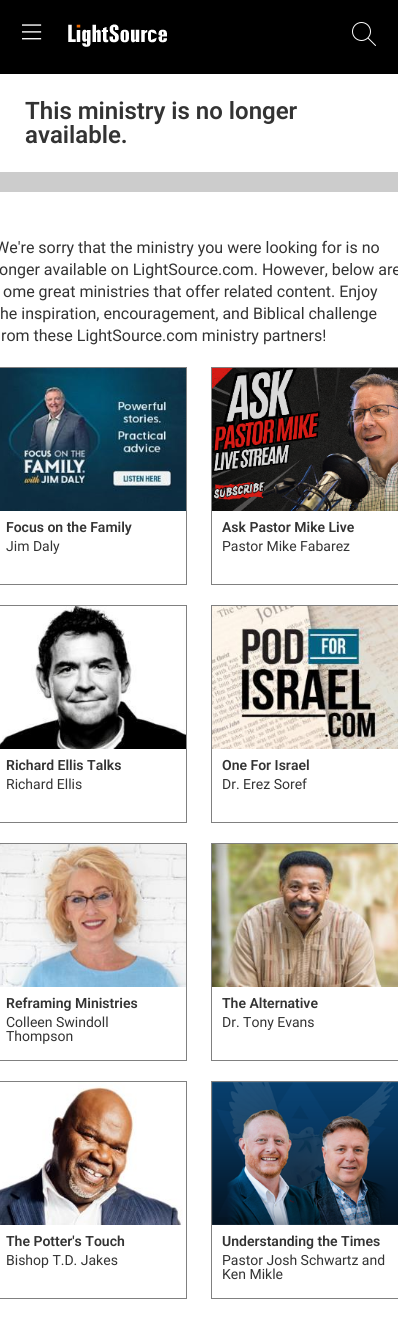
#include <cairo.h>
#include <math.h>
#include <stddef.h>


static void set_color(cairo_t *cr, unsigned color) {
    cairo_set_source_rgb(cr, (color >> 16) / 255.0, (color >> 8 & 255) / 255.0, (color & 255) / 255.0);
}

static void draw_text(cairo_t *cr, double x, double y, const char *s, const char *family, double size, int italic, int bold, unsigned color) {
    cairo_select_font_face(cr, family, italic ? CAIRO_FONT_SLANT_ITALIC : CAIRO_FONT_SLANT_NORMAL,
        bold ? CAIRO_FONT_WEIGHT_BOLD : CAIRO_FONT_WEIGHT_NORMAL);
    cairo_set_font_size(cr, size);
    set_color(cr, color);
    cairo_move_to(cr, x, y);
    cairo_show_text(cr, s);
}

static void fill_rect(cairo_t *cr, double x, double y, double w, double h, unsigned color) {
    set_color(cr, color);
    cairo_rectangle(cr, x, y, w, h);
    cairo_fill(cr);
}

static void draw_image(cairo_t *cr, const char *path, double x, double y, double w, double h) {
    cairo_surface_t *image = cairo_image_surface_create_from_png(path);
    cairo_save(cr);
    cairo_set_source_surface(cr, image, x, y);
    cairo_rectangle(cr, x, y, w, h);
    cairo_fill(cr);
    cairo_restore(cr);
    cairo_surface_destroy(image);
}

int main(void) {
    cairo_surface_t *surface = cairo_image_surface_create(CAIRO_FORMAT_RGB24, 398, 1324);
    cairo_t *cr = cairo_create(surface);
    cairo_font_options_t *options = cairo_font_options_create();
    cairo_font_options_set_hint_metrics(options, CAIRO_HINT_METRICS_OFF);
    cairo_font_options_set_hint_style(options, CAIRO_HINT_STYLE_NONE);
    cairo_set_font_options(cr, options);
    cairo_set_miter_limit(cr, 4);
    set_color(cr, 0xCCCCCC);
    cairo_paint(cr);
    fill_rect(cr, 0, 0, 398, 74, 0x000000);
    draw_image(cr, "assets/img1.png", 22, 24, 20, 16);
    draw_image(cr, "assets/img2.png", 68, 24, 99, 23);
    draw_image(cr, "assets/img3.png", 352, 22, 24, 24);
    fill_rect(cr, 0, 74, 398, 98, 0xFFFFFF);
    draw_text(cr, 25, 119, "This ministry is no longer", "Roboto SemiBold", 24, 0, 0, 0x333333);
    draw_text(cr, 25, 143, "available.", "Roboto SemiBold", 24, 0, 0, 0x333333);
    fill_rect(cr, 0, 192, 398, 1132, 0xFFFFFF);
    draw_text(cr, -5, 253, "We're sorry that the ministry you were looking for is no", "Roboto", 16, 0, 0, 0x333333);
    draw_text(cr, -1, 275, "onger available on LightSource.com. However, below are", "Roboto", 16, 0, 0, 0x333333);
    draw_text(cr, 3, 297, "ome great ministries that offer related content. Enjoy", "Roboto", 16, 0, 0, 0x333333);
    draw_text(cr, 0, 319, "he inspiration, encouragement, and Biblical challenge", "Roboto", 16, 0, 0, 0x333333);
    draw_text(cr, 1, 341, "rom these LightSource.com ministry partners!", "Roboto", 16, 0, 0, 0x333333);
    cairo_rectangle(cr, -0.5, 367.5, 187, 217);
    set_color(cr, 0x808080);
    cairo_set_line_width(cr, 1);
    cairo_stroke(cr);
    draw_image(cr, "assets/img4.png", 0, 368, 186, 143);
    draw_text(cr, 6, 532, "Focus on the Family", "Roboto SemiBold", 14, 0, 0, 0x333333);
    draw_text(cr, 6, 551, "Jim Daly", "Roboto", 14, 0, 0, 0x333333);
    cairo_rectangle(cr, 211.5, 367.5, 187, 217);
    set_color(cr, 0x808080);
    cairo_stroke(cr);
    draw_image(cr, "assets/img5.png", 212, 368, 186, 143);
    draw_text(cr, 222, 532, "Ask Pastor Mike Live", "Roboto SemiBold", 14, 0, 0, 0x333333);
    draw_text(cr, 222, 551, "Pastor Mike Fabarez", "Roboto", 14, 0, 0, 0x333333);
    cairo_rectangle(cr, -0.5, 605.5, 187, 217);
    set_color(cr, 0x808080);
    cairo_stroke(cr);
    draw_image(cr, "assets/img6.png", 0, 606, 186, 143);
    draw_text(cr, 6, 770, "Richard Ellis Talks", "Roboto SemiBold", 14, 0, 0, 0x333333);
    draw_text(cr, 6, 789, "Richard Ellis", "Roboto", 14, 0, 0, 0x333333);
    cairo_rectangle(cr, 211.5, 605.5, 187, 217);
    set_color(cr, 0x808080);
    cairo_stroke(cr);
    draw_image(cr, "assets/img7.png", 212, 606, 186, 143);
    draw_text(cr, 222, 770, "One For Israel", "Roboto SemiBold", 14, 0, 0, 0x333333);
    draw_text(cr, 222, 789, "Dr. Erez Soref", "Roboto", 14, 0, 0, 0x333333);
    cairo_rectangle(cr, -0.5, 843.5, 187, 217);
    set_color(cr, 0x808080);
    cairo_stroke(cr);
    draw_image(cr, "assets/img8.png", 0, 844, 186, 143);
    draw_text(cr, 6, 1008, "Reframing Ministries", "Roboto SemiBold", 14, 0, 0, 0x333333);
    draw_text(cr, 6, 1027, "Colleen Swindoll", "Roboto", 14, 0, 0, 0x333333);
    draw_text(cr, 6, 1041, "Thompson", "Roboto", 14, 0, 0, 0x333333);
    cairo_rectangle(cr, 211.5, 843.5, 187, 217);
    set_color(cr, 0x808080);
    cairo_stroke(cr);
    draw_image(cr, "assets/img9.png", 212, 844, 186, 143);
    draw_text(cr, 222, 1008, "The Alternative", "Roboto SemiBold", 14, 0, 0, 0x333333);
    draw_text(cr, 222, 1027, "Dr. Tony Evans", "Roboto", 14, 0, 0, 0x333333);
    cairo_rectangle(cr, -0.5, 1081.5, 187, 217);
    set_color(cr, 0x808080);
    cairo_stroke(cr);
    draw_image(cr, "assets/img10.png", 0, 1082, 183, 143);
    draw_text(cr, 6, 1246, "The Potter's Touch", "Roboto SemiBold", 14, 0, 0, 0x333333);
    draw_text(cr, 6, 1265, "Bishop T.D. Jakes", "Roboto", 14, 0, 0, 0x333333);
    cairo_rectangle(cr, 211.5, 1081.5, 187, 217);
    set_color(cr, 0x808080);
    cairo_stroke(cr);
    draw_image(cr, "assets/img11.png", 212, 1082, 186, 143);
    draw_text(cr, 222, 1246, "Understanding the Times", "Roboto SemiBold", 14, 0, 0, 0x333333);
    draw_text(cr, 222, 1265, "Pastor Josh Schwartz and", "Roboto", 14, 0, 0, 0x333333);
    draw_text(cr, 222, 1279, "Ken Mikle", "Roboto", 14, 0, 0, 0x333333);
    cairo_surface_write_to_png(surface, "output.png");
    cairo_font_options_destroy(options);
    cairo_destroy(cr);
    cairo_surface_destroy(surface);
    return 0;
}
